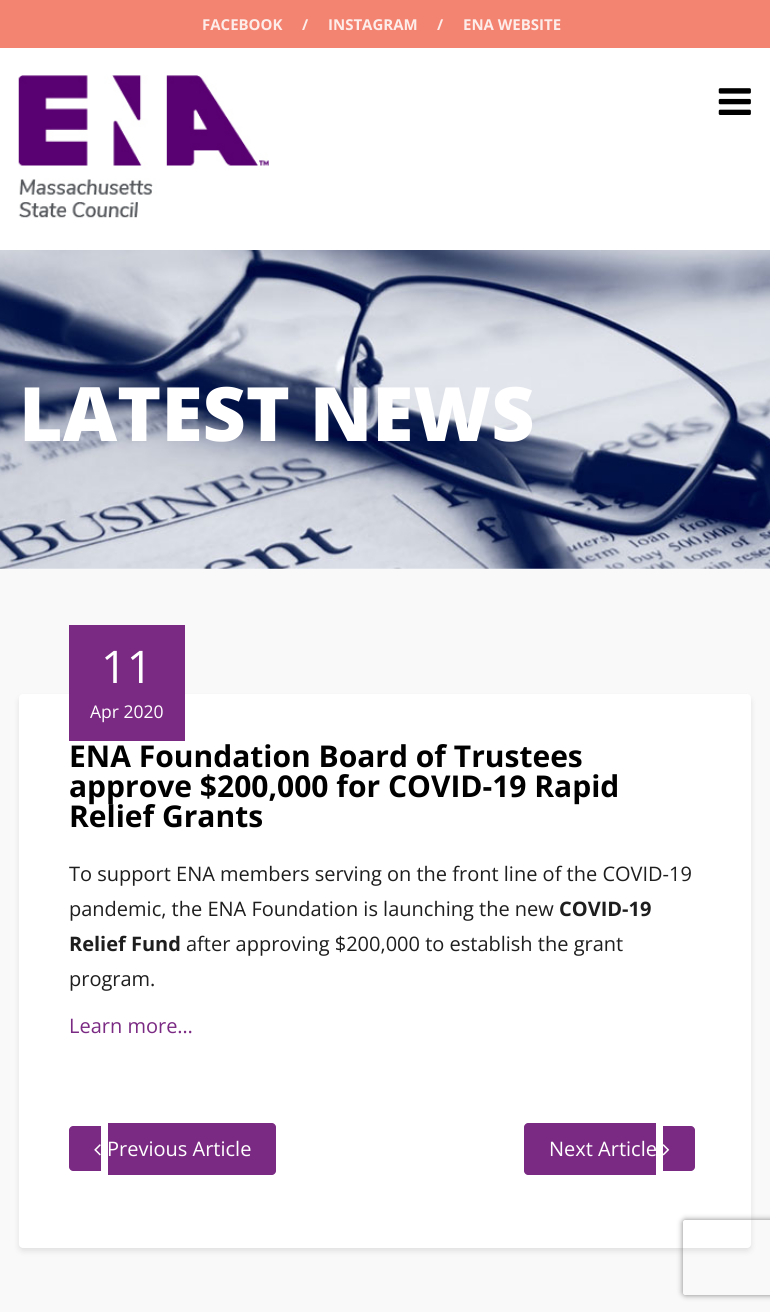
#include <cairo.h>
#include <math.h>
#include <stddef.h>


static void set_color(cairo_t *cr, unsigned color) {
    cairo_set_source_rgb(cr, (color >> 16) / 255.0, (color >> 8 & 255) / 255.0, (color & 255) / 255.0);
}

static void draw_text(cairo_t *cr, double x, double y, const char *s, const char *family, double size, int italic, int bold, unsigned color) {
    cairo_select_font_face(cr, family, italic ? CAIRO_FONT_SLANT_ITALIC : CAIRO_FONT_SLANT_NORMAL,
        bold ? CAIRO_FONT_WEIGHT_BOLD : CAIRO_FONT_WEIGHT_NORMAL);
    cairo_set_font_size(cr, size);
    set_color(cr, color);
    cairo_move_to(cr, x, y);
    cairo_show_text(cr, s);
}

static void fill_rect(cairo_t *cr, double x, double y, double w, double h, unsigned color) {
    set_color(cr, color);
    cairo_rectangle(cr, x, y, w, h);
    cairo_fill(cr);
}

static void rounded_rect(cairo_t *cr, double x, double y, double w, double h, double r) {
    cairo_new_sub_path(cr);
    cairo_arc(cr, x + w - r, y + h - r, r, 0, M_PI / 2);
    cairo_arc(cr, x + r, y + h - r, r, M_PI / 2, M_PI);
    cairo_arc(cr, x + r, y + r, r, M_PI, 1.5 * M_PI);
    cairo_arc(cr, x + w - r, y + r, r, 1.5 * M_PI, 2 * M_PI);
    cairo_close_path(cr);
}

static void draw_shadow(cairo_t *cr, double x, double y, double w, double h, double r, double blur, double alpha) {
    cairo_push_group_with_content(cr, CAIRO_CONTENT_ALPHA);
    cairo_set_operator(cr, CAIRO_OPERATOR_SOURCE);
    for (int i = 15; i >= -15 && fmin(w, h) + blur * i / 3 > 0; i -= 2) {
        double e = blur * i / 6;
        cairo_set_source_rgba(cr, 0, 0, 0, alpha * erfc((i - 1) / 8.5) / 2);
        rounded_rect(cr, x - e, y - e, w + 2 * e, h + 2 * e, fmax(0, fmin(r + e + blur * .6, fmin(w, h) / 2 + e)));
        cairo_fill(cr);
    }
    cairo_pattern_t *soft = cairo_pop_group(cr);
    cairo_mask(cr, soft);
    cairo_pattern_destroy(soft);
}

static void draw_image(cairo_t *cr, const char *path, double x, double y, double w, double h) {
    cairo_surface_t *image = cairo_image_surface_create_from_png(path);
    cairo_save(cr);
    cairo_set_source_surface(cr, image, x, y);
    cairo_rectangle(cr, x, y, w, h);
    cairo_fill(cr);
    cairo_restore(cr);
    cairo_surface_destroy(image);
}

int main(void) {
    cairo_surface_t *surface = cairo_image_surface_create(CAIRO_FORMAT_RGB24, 770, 1312);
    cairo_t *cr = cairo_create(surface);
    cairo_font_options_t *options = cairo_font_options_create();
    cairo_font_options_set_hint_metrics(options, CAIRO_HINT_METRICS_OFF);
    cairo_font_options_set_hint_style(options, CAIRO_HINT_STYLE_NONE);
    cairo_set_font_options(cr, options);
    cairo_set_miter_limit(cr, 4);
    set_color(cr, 0xF9F9F9);
    cairo_paint(cr);
    fill_rect(cr, 0, 0, 770, 48, 0xF48472);
    draw_text(cr, 202, 30, "FACEBOOK", "Open Sans", 15, 0, 1, 0xFDEDEA);
    draw_text(cr, 302, 30, "/", "Open Sans", 15, 0, 1, 0xFDEDEA);
    draw_text(cr, 328, 30, "INSTAGRAM", "Open Sans", 15, 0, 1, 0xFDEDEA);
    draw_text(cr, 437, 30, "/", "Open Sans", 15, 0, 1, 0xFDEDEA);
    draw_text(cr, 463, 30, "ENA WEBSITE", "Open Sans", 15, 0, 1, 0xFDEDEA);
    fill_rect(cr, 0, 48, 770, 202, 0xFFFFFF);
    draw_image(cr, "assets/img1.png", 18, 75, 251, 143);
    draw_image(cr, "assets/img2.png", 718, 88, 33, 27);
    draw_image(cr, "assets/img3.png", 0, 250, 770, 319);
    draw_text(cr, 19, 441, "LATEST NEWS", "Open Sans ExtraBold", 75, 0, 0, 0xFFFFFF);
    set_color(cr, 0x000000);
    draw_shadow(cr, 19, 698, 732, 553, 4, 3, 0.1);
    set_color(cr, 0xFFFFFF);
    rounded_rect(cr, 19, 694, 732, 554, 4);
    cairo_fill(cr);
    fill_rect(cr, 69, 625, 116, 116, 0x7B2A83);
    draw_text(cr, 101, 683, "11", "Open Sans", 45, 0, 0, 0xFFFFFF);
    draw_text(cr, 90, 718, "Apr 2020", "Open Sans", 17.5, 0, 0, 0xFFFFFF);
    draw_text(cr, 69, 767, "ENA Foundation Board of Trustees", "Open Sans", 30, 0, 1, 0x000000);
    draw_text(cr, 69, 797, "approve $200,000 for COVID-19 Rapid", "Open Sans", 30, 0, 1, 0x000000);
    draw_text(cr, 69, 827, "Relief Grants", "Open Sans", 30, 0, 1, 0x000000);
    draw_text(cr, 69, 881, "To support ENA members serving on the front line of the COVID-19", "Open Sans", 20, 0, 0, 0x1E1E1E);
    draw_text(cr, 69, 916, "pandemic, the ENA Foundation is launching the new", "Open Sans", 20, 0, 0, 0x1E1E1E);
    draw_text(cr, 559, 916, "COVID-19", "Open Sans", 20, 0, 1, 0x1E1E1E);
    draw_text(cr, 69, 951, "Relief Fund", "Open Sans", 20, 0, 1, 0x1E1E1E);
    draw_text(cr, 186, 951, "after approving $200,000 to establish the grant", "Open Sans", 20, 0, 0, 0x1E1E1E);
    draw_text(cr, 69, 986, "program.", "Open Sans", 20, 0, 0, 0x1E1E1E);
    draw_text(cr, 69, 1033, "Learn more…", "Open Sans", 20, 0, 0, 0x7B2A83);
    cairo_new_path(cr);
    cairo_move_to(cr, 73, 1126);
    cairo_line_to(cr, 101, 1126);
    cairo_line_to(cr, 101, 1171);
    cairo_line_to(cr, 73, 1171);
    cairo_curve_to(cr, 71, 1171, 69, 1169, 69, 1167);
    cairo_line_to(cr, 69, 1130);
    cairo_curve_to(cr, 69, 1128, 71, 1126, 73, 1126);
    cairo_close_path(cr);
    cairo_fill(cr);
    draw_image(cr, "assets/img4.png", 94, 1144, 7, 12);
    cairo_new_path(cr);
    cairo_move_to(cr, 108, 1123);
    cairo_line_to(cr, 272, 1123);
    cairo_curve_to(cr, 274, 1123, 276, 1125, 276, 1127);
    cairo_line_to(cr, 276, 1171);
    cairo_curve_to(cr, 276, 1173, 274, 1175, 272, 1175);
    cairo_line_to(cr, 108, 1175);
    cairo_close_path(cr);
    cairo_fill(cr);
    draw_text(cr, 107, 1156, "Previous Article", "Open Sans", 20, 0, 0, 0xFFFFFF);
    set_color(cr, 0x7B2A83);
    cairo_new_path(cr);
    cairo_move_to(cr, 528, 1123);
    cairo_line_to(cr, 656, 1123);
    cairo_line_to(cr, 656, 1175);
    cairo_line_to(cr, 528, 1175);
    cairo_curve_to(cr, 526, 1175, 524, 1173, 524, 1171);
    cairo_line_to(cr, 524, 1127);
    cairo_curve_to(cr, 524, 1125, 526, 1123, 528, 1123);
    cairo_close_path(cr);
    cairo_fill(cr);
    draw_text(cr, 549, 1156, "Next Article", "Open Sans", 20, 0, 0, 0xFFFFFF);
    set_color(cr, 0x7B2A83);
    cairo_new_path(cr);
    cairo_move_to(cr, 663, 1126);
    cairo_line_to(cr, 691, 1126);
    cairo_curve_to(cr, 693, 1126, 695, 1128, 695, 1130);
    cairo_line_to(cr, 695, 1167);
    cairo_curve_to(cr, 695, 1169, 693, 1171, 691, 1171);
    cairo_line_to(cr, 663, 1171);
    cairo_close_path(cr);
    cairo_fill(cr);
    draw_image(cr, "assets/img5.png", 663, 1144, 7, 12);
    cairo_save(cr);
    cairo_set_fill_rule(cr, CAIRO_FILL_RULE_EVEN_ODD);
    cairo_new_path(cr);
    cairo_move_to(cr, 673, 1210);
    cairo_line_to(cr, 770, 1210);
    cairo_line_to(cr, 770, 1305);
    cairo_line_to(cr, 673, 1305);
    cairo_close_path(cr);
    cairo_move_to(cr, 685.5, 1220);
    cairo_line_to(cr, 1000.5, 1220);
    cairo_curve_to(cr, 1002, 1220, 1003, 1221, 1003, 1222.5);
    cairo_line_to(cr, 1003, 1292.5);
    cairo_curve_to(cr, 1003, 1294, 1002, 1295, 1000.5, 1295);
    cairo_line_to(cr, 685.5, 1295);
    cairo_curve_to(cr, 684, 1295, 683, 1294, 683, 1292.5);
    cairo_line_to(cr, 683, 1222.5);
    cairo_curve_to(cr, 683, 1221, 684, 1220, 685.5, 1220);
    cairo_close_path(cr);
    cairo_clip(cr);
    set_color(cr, 0x808080);
    draw_shadow(cr, 683, 1220, 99, 75, 2.5, 3, 1);
    cairo_restore(cr);
    cairo_surface_write_to_png(surface, "output.png");
    cairo_font_options_destroy(options);
    cairo_destroy(cr);
    cairo_surface_destroy(surface);
    return 0;
}
